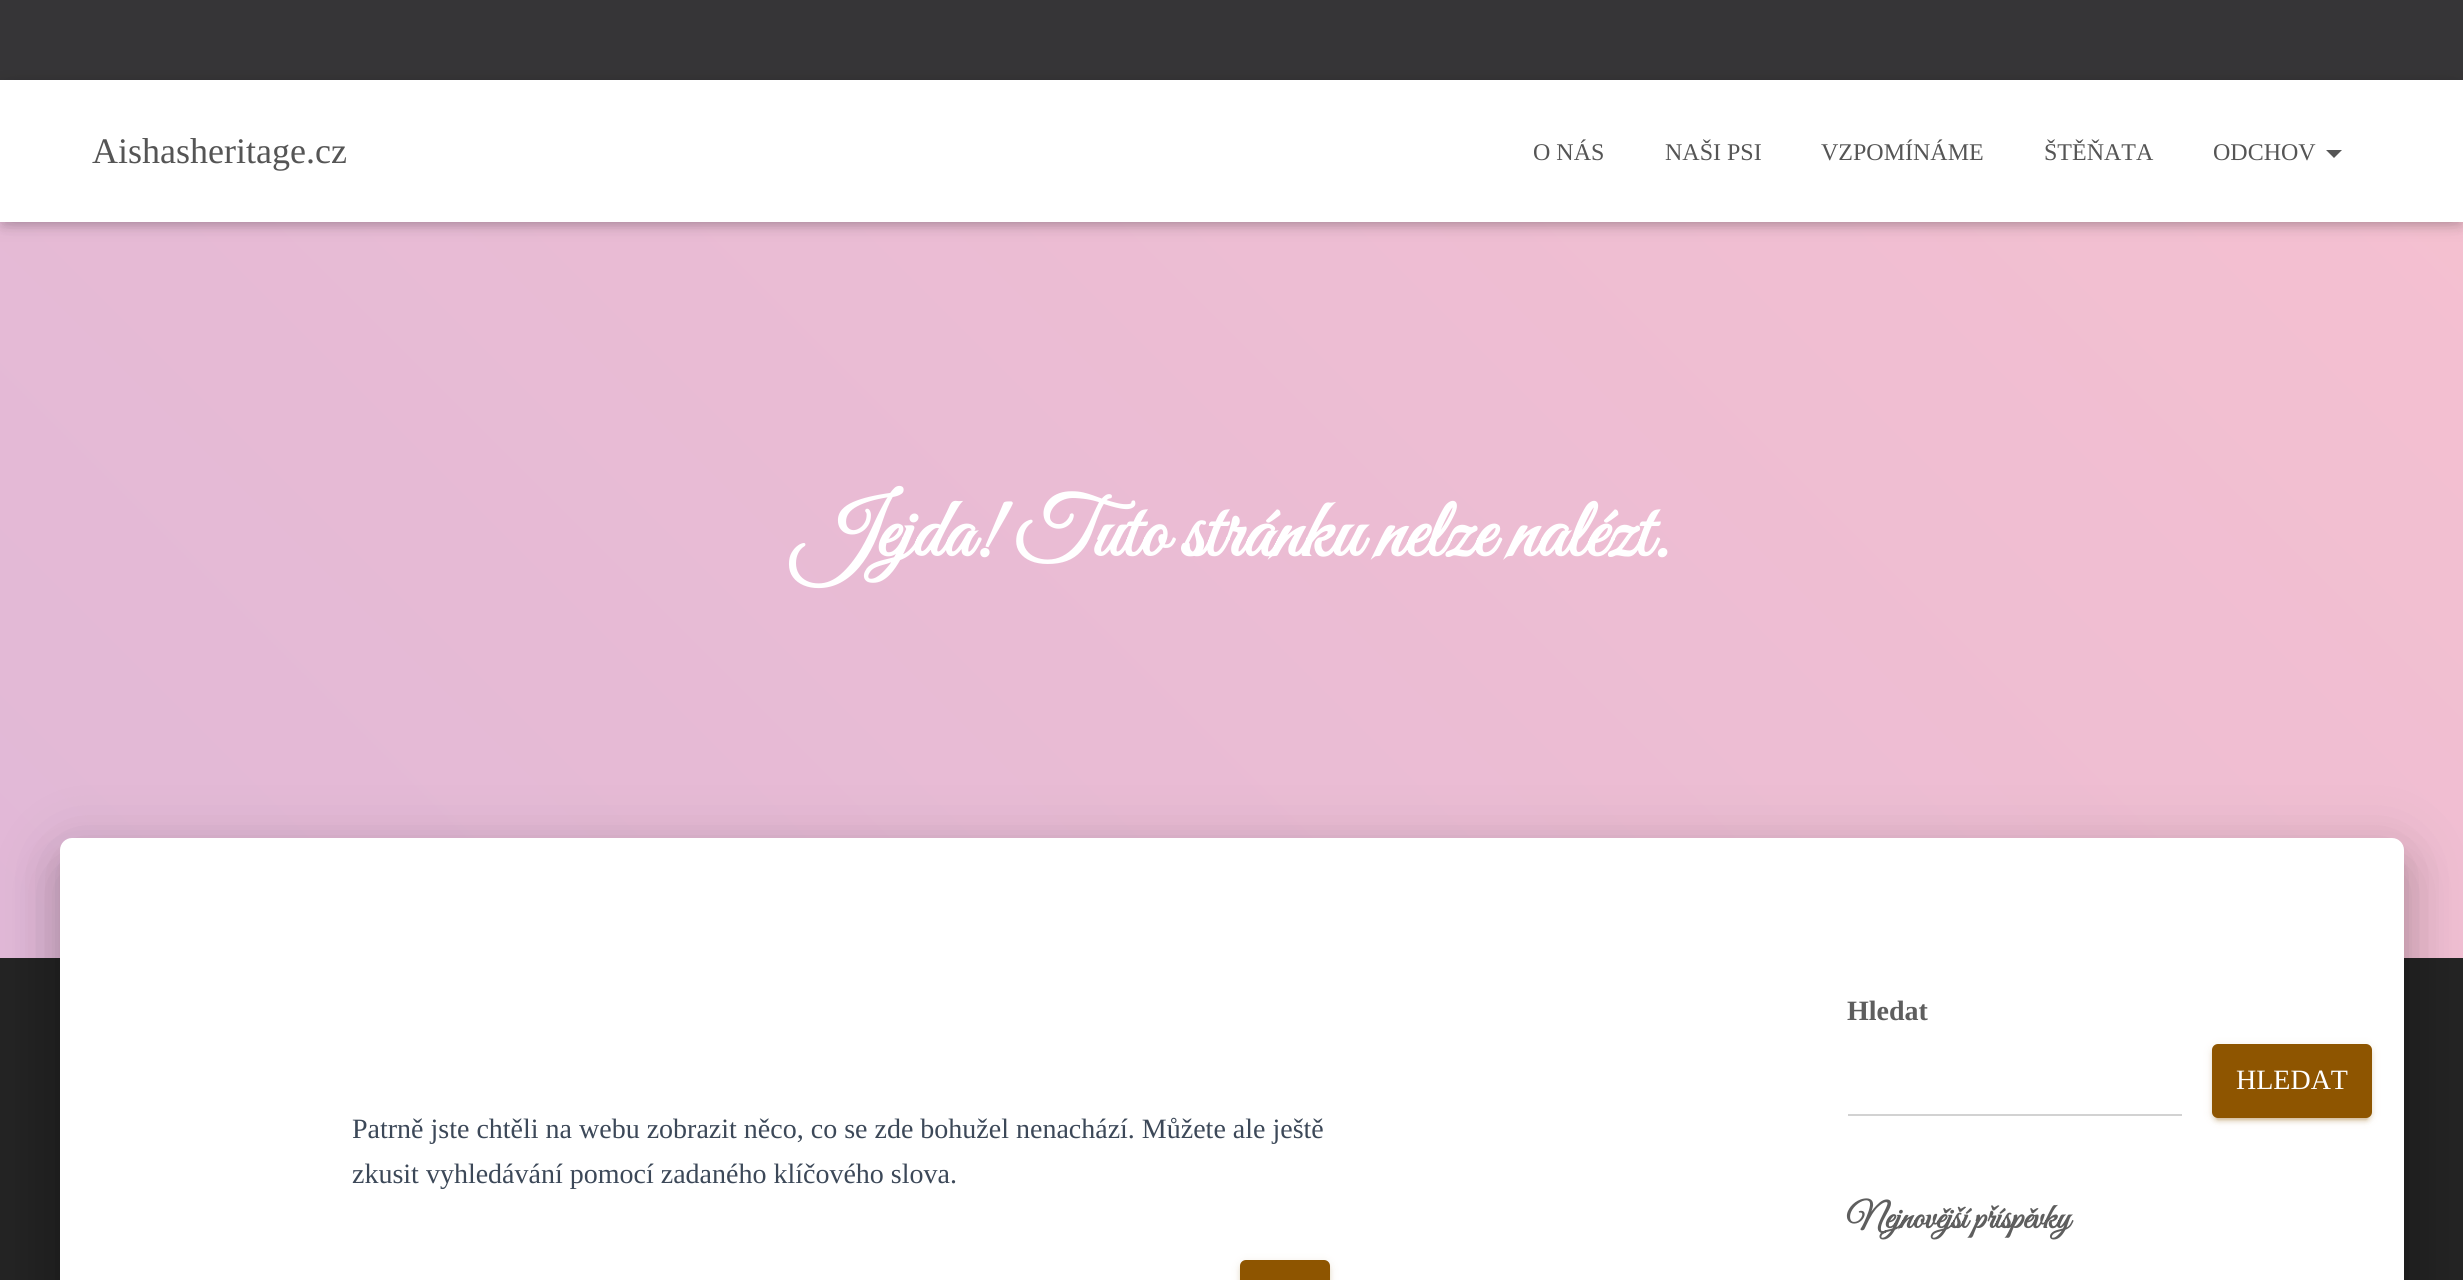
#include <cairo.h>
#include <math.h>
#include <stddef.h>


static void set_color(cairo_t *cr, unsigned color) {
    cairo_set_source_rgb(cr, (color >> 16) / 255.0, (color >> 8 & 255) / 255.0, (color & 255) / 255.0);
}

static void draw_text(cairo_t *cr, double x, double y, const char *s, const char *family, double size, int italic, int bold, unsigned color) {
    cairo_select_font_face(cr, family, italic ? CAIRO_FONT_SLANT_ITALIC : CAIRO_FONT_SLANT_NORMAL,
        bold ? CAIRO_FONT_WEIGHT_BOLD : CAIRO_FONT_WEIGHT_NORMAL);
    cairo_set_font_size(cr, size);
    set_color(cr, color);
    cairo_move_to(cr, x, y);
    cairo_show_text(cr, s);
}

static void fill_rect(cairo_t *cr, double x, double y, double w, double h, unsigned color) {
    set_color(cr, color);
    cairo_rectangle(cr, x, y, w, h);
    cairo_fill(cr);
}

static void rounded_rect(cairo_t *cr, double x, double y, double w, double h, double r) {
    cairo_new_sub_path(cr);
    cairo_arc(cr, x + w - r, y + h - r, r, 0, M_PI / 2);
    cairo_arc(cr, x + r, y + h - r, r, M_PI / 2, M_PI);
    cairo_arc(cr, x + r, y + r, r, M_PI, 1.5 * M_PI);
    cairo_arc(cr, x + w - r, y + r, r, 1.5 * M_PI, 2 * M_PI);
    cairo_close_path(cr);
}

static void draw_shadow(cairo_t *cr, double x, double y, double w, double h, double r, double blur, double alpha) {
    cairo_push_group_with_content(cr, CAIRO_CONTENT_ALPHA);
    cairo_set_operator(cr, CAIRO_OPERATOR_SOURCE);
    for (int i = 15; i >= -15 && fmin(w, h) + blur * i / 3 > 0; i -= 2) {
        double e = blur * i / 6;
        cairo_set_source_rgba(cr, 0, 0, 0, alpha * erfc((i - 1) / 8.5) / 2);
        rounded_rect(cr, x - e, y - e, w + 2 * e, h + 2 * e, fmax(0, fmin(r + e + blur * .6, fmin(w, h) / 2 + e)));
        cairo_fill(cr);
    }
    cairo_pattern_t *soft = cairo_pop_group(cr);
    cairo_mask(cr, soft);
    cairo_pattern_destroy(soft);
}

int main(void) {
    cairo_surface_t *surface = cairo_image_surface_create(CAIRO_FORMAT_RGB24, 2463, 1280);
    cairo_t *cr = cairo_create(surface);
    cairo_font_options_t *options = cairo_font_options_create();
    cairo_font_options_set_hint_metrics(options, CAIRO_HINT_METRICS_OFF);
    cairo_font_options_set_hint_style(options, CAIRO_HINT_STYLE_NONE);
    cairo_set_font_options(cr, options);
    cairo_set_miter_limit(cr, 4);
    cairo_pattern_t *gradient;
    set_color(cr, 0x232323);
    cairo_paint(cr);
    fill_rect(cr, 0, 0, 2463, 80, 0x363537);
    gradient = cairo_pattern_create_linear(397, 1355, 2068, -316);
    cairo_pattern_add_color_stop_rgba(gradient, 0, 0.882, 0.722, 0.843, 1);
    cairo_pattern_add_color_stop_rgba(gradient, 1, 0.961, 0.753, 0.816, 1);
    cairo_set_source(cr, gradient);
    cairo_pattern_destroy(gradient);
    cairo_rectangle(cr, 0, 222, 2463, 736);
    cairo_fill(cr);
    set_color(cr, 0x000000);
    draw_shadow(cr, 4, 92, 2456, 134, 0, 5, 0.1);
    draw_shadow(cr, 0, 82, 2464, 142, 0, 10, 0.12);
    draw_shadow(cr, 12, 94, 2440, 118, 0, 10, 0.42);
    fill_rect(cr, 0, 80, 2463, 142, 0xFFFFFF);
    draw_text(cr, 92, 163, "Aishasheritage.cz", "Liberation Serif", 36, 0, 0, 0x555555);
    draw_text(cr, 1533, 160, "O NÁS", "Liberation Serif", 24, 0, 0, 0x555555);
    draw_text(cr, 1665, 160, "NAŠI PSI", "Liberation Serif", 24, 0, 0, 0x555555);
    draw_text(cr, 1821, 160, "VZPOMÍNÁME", "Liberation Serif", 24, 0, 0, 0x555555);
    draw_text(cr, 2044, 160, "ŠTĚŇATA", "Liberation Serif", 24, 0, 0, 0x555555);
    draw_text(cr, 2213, 160, "ODCHOV", "Liberation Serif", 24, 0, 0, 0x555555);
    cairo_new_path(cr);
    cairo_move_to(cr, 2326, 150);
    cairo_line_to(cr, 2342, 150);
    cairo_line_to(cr, 2334, 158);
    cairo_close_path(cr);
    cairo_fill(cr);
    draw_text(cr, 794, 556, "Jejda! Tuto stránku nelze nalézt.", "Great Vibes", 84, 0, 1, 0xFFFFFF);
    set_color(cr, 0x000000);
    draw_shadow(cr, 70, 864, 2324, 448, 2, 10, 0.2);
    draw_shadow(cr, 50, 840, 2364, 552, 22, 30, 0.12);
    draw_shadow(cr, 56, 866, 2352, 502, 16, 24, 0.14);
    set_color(cr, 0xFFFFFF);
    cairo_new_path(cr);
    cairo_move_to(cr, 72, 838);
    cairo_line_to(cr, 2392, 838);
    cairo_curve_to(cr, 2398.5, 838, 2404, 843.5, 2404, 850);
    cairo_line_to(cr, 2404, 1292);
    cairo_line_to(cr, 60, 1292);
    cairo_line_to(cr, 60, 850);
    cairo_curve_to(cr, 60, 843.5, 65.5, 838, 72, 838);
    cairo_close_path(cr);
    cairo_fill(cr);
    draw_text(cr, 352, 1138, "Patrně jste chtěli na webu zobrazit něco, co se zde bohužel nenachází. Můžete ale ještě", "Liberation Serif", 28, 0, 0, 0x3C4858);
    draw_text(cr, 352, 1183, "zkusit vyhledávání pomocí zadaného klíčového slova.", "Liberation Serif", 28, 0, 0, 0x3C4858);
    set_color(cr, 0x8E5500);
    draw_shadow(cr, 1240, 1262, 90, 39, 6, 5, 0.12);
    draw_shadow(cr, 1240, 1264, 90, 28, 6, 2, 0.14);
    set_color(cr, 0x8E5500);
    rounded_rect(cr, 1240, 1260, 90, 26, 6);
    cairo_fill(cr);
    draw_text(cr, 1847, 1020, "Hledat", "Liberation Serif", 28, 0, 1, 0x5E5E5E);
    set_color(cr, 0x8E5500);
    draw_shadow(cr, 2212, 1046, 160, 74, 6, 5, 0.12);
    draw_shadow(cr, 2216, 1054, 152, 66, 2, 1, 0.2);
    draw_shadow(cr, 2212, 1048, 160, 74, 6, 2, 0.14);
    set_color(cr, 0x8E5500);
    rounded_rect(cr, 2212, 1044, 160, 74, 6);
    cairo_fill(cr);
    draw_text(cr, 2236, 1089, "HLEDAT", "Liberation Serif", 28, 0, 0, 0xFFFFFF);
    fill_rect(cr, 1848, 1114, 334, 2, 0xD2D2D2);
    draw_text(cr, 1847, 1228, "Nejnovější příspěvky", "Great Vibes", 36, 0, 1, 0x5E5E5E);
    cairo_surface_write_to_png(surface, "output.png");
    cairo_font_options_destroy(options);
    cairo_destroy(cr);
    cairo_surface_destroy(surface);
    return 0;
}
